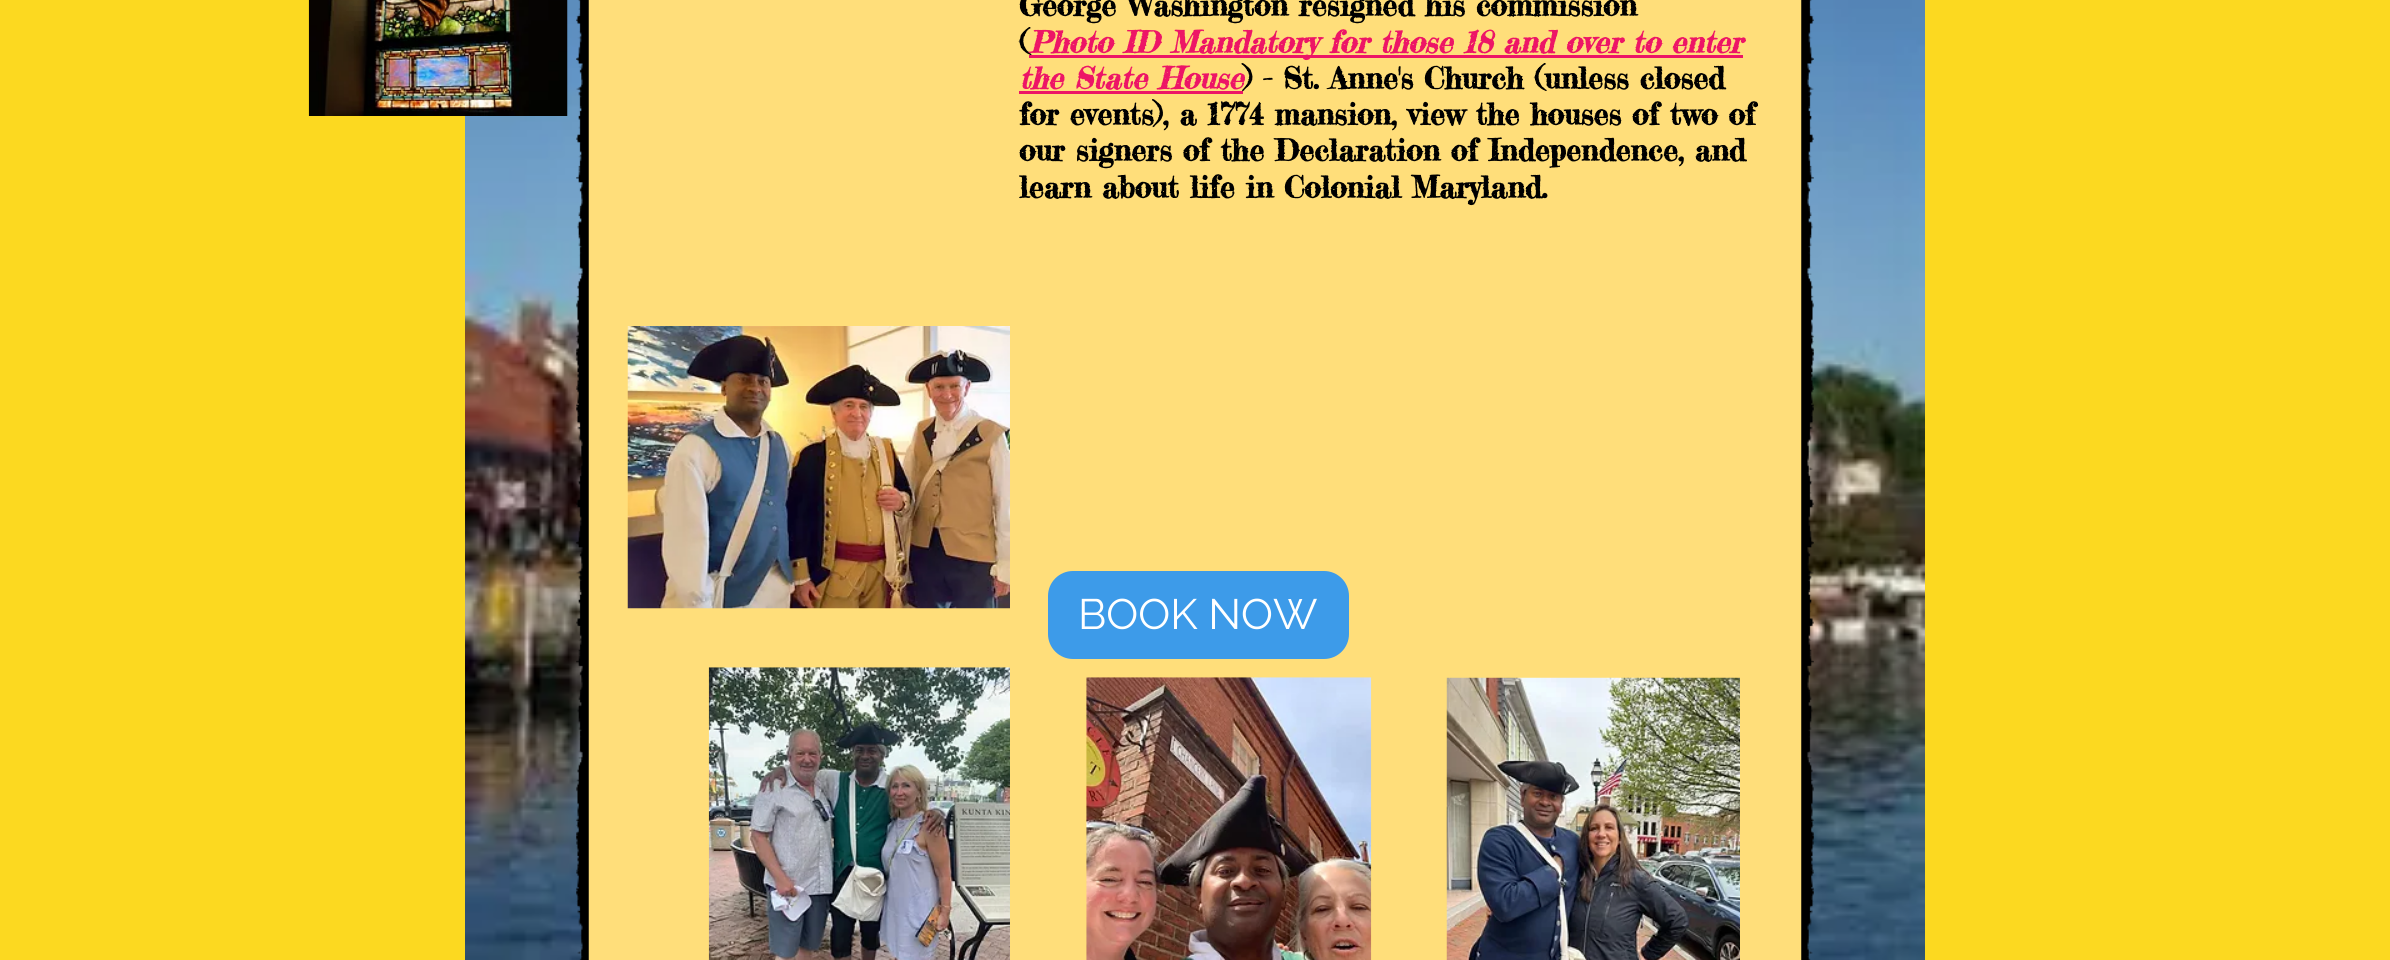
#include <cairo.h>
#include <math.h>
#include <stddef.h>


static void set_color(cairo_t *cr, unsigned color) {
    cairo_set_source_rgb(cr, (color >> 16) / 255.0, (color >> 8 & 255) / 255.0, (color & 255) / 255.0);
}

static void draw_text(cairo_t *cr, double x, double y, const char *s, const char *family, double size, int italic, int bold, unsigned color) {
    cairo_select_font_face(cr, family, italic ? CAIRO_FONT_SLANT_ITALIC : CAIRO_FONT_SLANT_NORMAL,
        bold ? CAIRO_FONT_WEIGHT_BOLD : CAIRO_FONT_WEIGHT_NORMAL);
    cairo_set_font_size(cr, size);
    set_color(cr, color);
    cairo_move_to(cr, x, y);
    cairo_show_text(cr, s);
}

static void fill_rect(cairo_t *cr, double x, double y, double w, double h, unsigned color) {
    set_color(cr, color);
    cairo_rectangle(cr, x, y, w, h);
    cairo_fill(cr);
}

static void rounded_rect(cairo_t *cr, double x, double y, double w, double h, double r) {
    cairo_new_sub_path(cr);
    cairo_arc(cr, x + w - r, y + h - r, r, 0, M_PI / 2);
    cairo_arc(cr, x + r, y + h - r, r, M_PI / 2, M_PI);
    cairo_arc(cr, x + r, y + r, r, M_PI, 1.5 * M_PI);
    cairo_arc(cr, x + w - r, y + r, r, 1.5 * M_PI, 2 * M_PI);
    cairo_close_path(cr);
}

static void draw_image(cairo_t *cr, const char *path, double x, double y, double w, double h) {
    cairo_surface_t *image = cairo_image_surface_create_from_png(path);
    cairo_save(cr);
    cairo_set_source_surface(cr, image, x, y);
    cairo_rectangle(cr, x, y, w, h);
    cairo_fill(cr);
    cairo_restore(cr);
    cairo_surface_destroy(image);
}

int main(void) {
    cairo_surface_t *surface = cairo_image_surface_create(CAIRO_FORMAT_RGB24, 2390, 960);
    cairo_t *cr = cairo_create(surface);
    cairo_font_options_t *options = cairo_font_options_create();
    cairo_font_options_set_hint_metrics(options, CAIRO_HINT_METRICS_OFF);
    cairo_font_options_set_hint_style(options, CAIRO_HINT_STYLE_NONE);
    cairo_set_font_options(cr, options);
    cairo_set_miter_limit(cr, 4);
    set_color(cr, 0xFCD920);
    cairo_paint(cr);
    draw_image(cr, "assets/img1.png", 465, 0, 1460, 960);
    draw_image(cr, "assets/img2.png", 308, 0, 260, 116);
    fill_rect(cr, 588, 0, 1214, 960, 0xFFDE7A);
    draw_image(cr, "assets/img3.png", 576, 0, 13, 960);
    draw_image(cr, "assets/img4.png", 1801, 0, 13, 960);
    draw_text(cr, 1019, 16, "George Washington resigned his commission", "Fredericka the Great", 30, 0, 1, 0x000000);
    draw_text(cr, 1019, 53, "(", "Fredericka the Great", 30, 0, 1, 0x000000);
    fill_rect(cr, 1029, 55, 714, 3, 0xED1566);
    draw_text(cr, 1029, 53, "Photo ID Mandatory for those 18 and over to enter", "Fredericka the Great", 30, 1, 1, 0xED1566);
    draw_text(cr, 1019, 89, "the State House", "Fredericka the Great", 30, 1, 1, 0xED1566);
    fill_rect(cr, 1019, 91, 224, 3, 0xED1566);
    draw_text(cr, 1243, 89, ") - St. Anne's Church (unless closed", "Fredericka the Great", 30, 0, 1, 0x000000);
    draw_text(cr, 1019, 125, "for events), a 1774 mansion, view the houses of two of", "Fredericka the Great", 30, 0, 1, 0x000000);
    draw_text(cr, 1019, 161, "our signers of the Declaration of Independence, and", "Fredericka the Great", 30, 0, 1, 0x000000);
    draw_text(cr, 1019, 198, "learn about life in Colonial Maryland.", "Fredericka the Great", 30, 0, 1, 0x000000);
    draw_image(cr, "assets/img5.png", 627, 326, 383, 283);
    set_color(cr, 0x3D9BE9);
    rounded_rect(cr, 1048, 571, 301, 88, 25);
    cairo_fill(cr);
    draw_text(cr, 1078, 629, "BOOK NOW", "Raleway", 42.5, 0, 0, 0xFFFFFF);
    draw_image(cr, "assets/img6.png", 708, 667, 302, 293);
    draw_image(cr, "assets/img7.png", 1086, 677, 286, 283);
    draw_image(cr, "assets/img8.png", 1446, 677, 294, 283);
    cairo_surface_write_to_png(surface, "output.png");
    cairo_font_options_destroy(options);
    cairo_destroy(cr);
    cairo_surface_destroy(surface);
    return 0;
}
